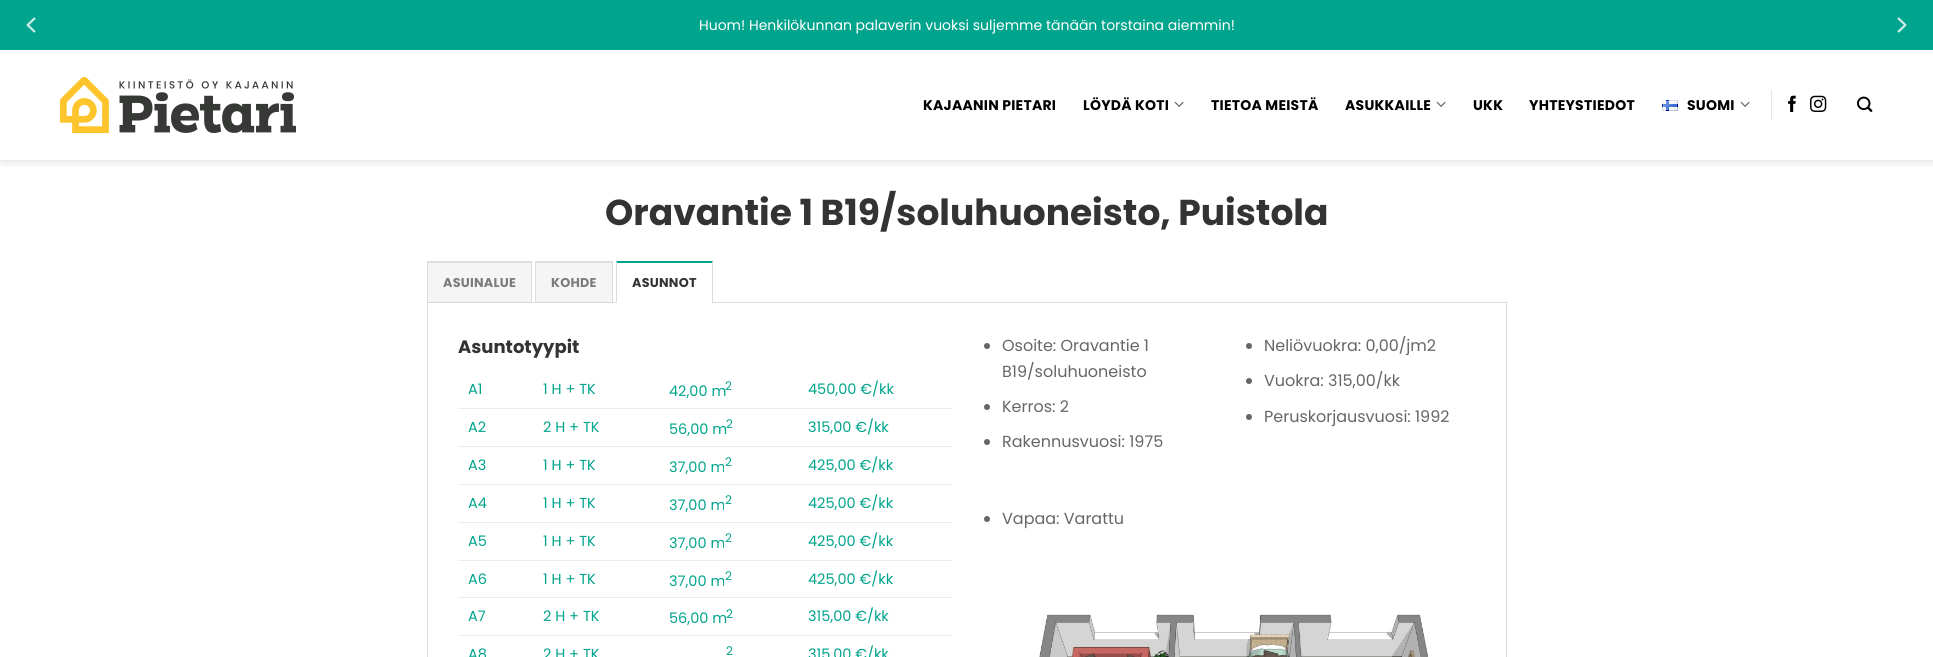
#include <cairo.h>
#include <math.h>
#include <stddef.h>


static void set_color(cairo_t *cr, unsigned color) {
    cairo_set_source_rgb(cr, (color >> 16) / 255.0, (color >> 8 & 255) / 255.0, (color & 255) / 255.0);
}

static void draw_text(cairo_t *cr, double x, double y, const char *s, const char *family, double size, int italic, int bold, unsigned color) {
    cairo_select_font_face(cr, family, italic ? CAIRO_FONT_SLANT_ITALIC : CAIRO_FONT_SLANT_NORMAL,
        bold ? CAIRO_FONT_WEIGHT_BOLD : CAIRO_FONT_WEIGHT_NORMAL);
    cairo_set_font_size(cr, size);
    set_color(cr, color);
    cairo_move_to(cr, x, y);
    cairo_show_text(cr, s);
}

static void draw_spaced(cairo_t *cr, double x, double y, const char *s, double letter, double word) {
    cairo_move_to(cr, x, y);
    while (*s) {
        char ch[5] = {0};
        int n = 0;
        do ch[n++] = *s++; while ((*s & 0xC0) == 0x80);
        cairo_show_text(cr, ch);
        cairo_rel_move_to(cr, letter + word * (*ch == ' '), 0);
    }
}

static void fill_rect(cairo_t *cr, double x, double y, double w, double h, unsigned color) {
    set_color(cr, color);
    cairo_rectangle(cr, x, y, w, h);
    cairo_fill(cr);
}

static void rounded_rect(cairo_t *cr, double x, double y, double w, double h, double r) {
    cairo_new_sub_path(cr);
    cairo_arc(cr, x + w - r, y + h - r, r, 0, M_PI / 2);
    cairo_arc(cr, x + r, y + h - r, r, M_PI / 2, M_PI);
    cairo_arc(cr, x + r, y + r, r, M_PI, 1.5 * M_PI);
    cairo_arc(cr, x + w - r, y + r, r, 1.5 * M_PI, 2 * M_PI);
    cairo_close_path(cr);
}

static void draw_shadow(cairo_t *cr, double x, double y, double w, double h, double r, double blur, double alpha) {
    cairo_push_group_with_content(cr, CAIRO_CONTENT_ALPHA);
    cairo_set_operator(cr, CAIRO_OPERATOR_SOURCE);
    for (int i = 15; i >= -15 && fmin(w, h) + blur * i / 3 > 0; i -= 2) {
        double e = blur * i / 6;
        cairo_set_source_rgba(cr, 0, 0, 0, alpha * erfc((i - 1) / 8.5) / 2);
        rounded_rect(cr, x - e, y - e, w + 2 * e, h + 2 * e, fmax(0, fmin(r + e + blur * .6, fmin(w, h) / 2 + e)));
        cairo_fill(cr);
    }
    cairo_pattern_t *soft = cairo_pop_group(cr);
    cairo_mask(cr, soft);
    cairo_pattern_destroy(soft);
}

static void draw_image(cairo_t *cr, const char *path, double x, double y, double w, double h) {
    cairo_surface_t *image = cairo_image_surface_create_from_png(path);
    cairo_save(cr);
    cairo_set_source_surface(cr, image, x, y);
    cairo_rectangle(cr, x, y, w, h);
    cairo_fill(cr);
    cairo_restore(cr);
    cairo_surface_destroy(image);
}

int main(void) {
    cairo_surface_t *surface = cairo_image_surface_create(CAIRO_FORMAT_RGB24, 1933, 657);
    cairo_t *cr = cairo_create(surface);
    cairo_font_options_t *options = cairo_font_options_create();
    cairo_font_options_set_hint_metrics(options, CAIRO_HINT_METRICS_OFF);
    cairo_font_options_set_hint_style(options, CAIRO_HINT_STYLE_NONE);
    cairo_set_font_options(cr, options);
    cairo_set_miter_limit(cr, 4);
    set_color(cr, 0xFFFFFF);
    cairo_paint(cr);
    cairo_save(cr);
    cairo_rectangle(cr, 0, 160, 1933, 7);
    cairo_clip(cr);
    set_color(cr, 0x000000);
    draw_shadow(cr, 1, 1, 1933, 160, 0, 5, 0.15);
    cairo_restore(cr);
    fill_rect(cr, 0, 0, 1933, 50, 0x01A48C);
    draw_image(cr, "assets/img1.png", 26, 17, 10, 16);
    draw_text(cr, 699, 30, "Huom! Henkilökunnan palaverin vuoksi suljemme tänään torstaina aiemmin!", "Poppins", 14, 0, 0, 0xFFFFFF);
    draw_image(cr, "assets/img2.png", 1897, 17, 10, 16);
    draw_image(cr, "assets/img3.png", 60, 77, 236, 56);
    cairo_select_font_face(cr, "Poppins", CAIRO_FONT_SLANT_NORMAL, CAIRO_FONT_WEIGHT_BOLD);
    set_color(cr, 0x000000);
    draw_spaced(cr, 923, 110, "KAJAANIN PIETARI", 0.25, 0);
    draw_spaced(cr, 1083, 110, "LÖYDÄ KOTI", 0.25, 0);
    draw_image(cr, "assets/img4.png", 1174, 101, 10, 6);
    draw_spaced(cr, 1211, 110, "TIETOA MEISTÄ", 0.25, 0);
    draw_spaced(cr, 1345, 110, "ASUKKAILLE", 0.25, 0);
    draw_image(cr, "assets/img4.png", 1436, 101, 10, 6);
    draw_spaced(cr, 1473, 110, "UKK", 0.25, 0);
    draw_spaced(cr, 1529, 110, "YHTEYSTIEDOT", 0.25, 0);
    draw_image(cr, "assets/img5.png", 1662, 100, 16, 11);
    draw_spaced(cr, 1687, 110, "SUOMI", 0.25, 0);
    draw_image(cr, "assets/img4.png", 1740, 101, 10, 6);
    fill_rect(cr, 1771, 90, 1, 30, 0xE6E6E6);
    draw_image(cr, "assets/img6.png", 1788, 95, 8, 17);
    draw_image(cr, "assets/img7.png", 1810, 95, 17, 17);
    draw_image(cr, "assets/img8.png", 1857, 96, 16, 16);
    draw_text(cr, 605, 225, "Oravantie 1 B19/soluhuoneisto, Puistola", "Poppins", 36, 0, 1, 0x333333);
    cairo_rectangle(cr, 427.5, 302.5, 1079, 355);
    set_color(cr, 0xDDDDDD);
    cairo_set_line_width(cr, 1);
    cairo_stroke(cr);
    cairo_set_source_rgba(cr, 0, 0, 0, 0.04);
    cairo_rectangle(cr, 428, 263, 103, 40);
    cairo_fill(cr);
    fill_rect(cr, 427, 261, 105, 2, 0xDDDDDD);
    fill_rect(cr, 531, 261, 1, 42, 0xDDDDDD);
    fill_rect(cr, 427, 261, 1, 42, 0xDDDDDD);
    cairo_set_font_size(cr, 12.75);
    set_color(cr, 0x7B7B7B);
    draw_spaced(cr, 443, 287, "ASUINALUE", 0.25, 0);
    cairo_set_source_rgba(cr, 0, 0, 0, 0.04);
    cairo_rectangle(cr, 536, 263, 76, 40);
    cairo_fill(cr);
    fill_rect(cr, 535, 261, 78, 2, 0xDDDDDD);
    fill_rect(cr, 612, 261, 1, 42, 0xDDDDDD);
    fill_rect(cr, 535, 261, 1, 42, 0xDDDDDD);
    set_color(cr, 0x7B7B7B);
    draw_spaced(cr, 551, 287, "KOHDE", 0.25, 0);
    fill_rect(cr, 616, 302, 97, 1, 0xFFFFFF);
    set_color(cr, 0x01A48C);
    cairo_new_path(cr);
    cairo_move_to(cr, 616, 261);
    cairo_line_to(cr, 713, 261);
    cairo_line_to(cr, 712, 263);
    cairo_line_to(cr, 617, 263);
    cairo_close_path(cr);
    cairo_fill(cr);
    set_color(cr, 0xDDDDDD);
    cairo_new_path(cr);
    cairo_move_to(cr, 713, 261);
    cairo_line_to(cr, 713, 303);
    cairo_line_to(cr, 712, 303);
    cairo_line_to(cr, 712, 263);
    cairo_close_path(cr);
    cairo_fill(cr);
    cairo_new_path(cr);
    cairo_move_to(cr, 616, 303);
    cairo_line_to(cr, 616, 261);
    cairo_line_to(cr, 617, 263);
    cairo_line_to(cr, 617, 303);
    cairo_close_path(cr);
    cairo_fill(cr);
    set_color(cr, 0x333333);
    draw_spaced(cr, 632, 287, "ASUNNOT", 0.25, 0);
    draw_text(cr, 458, 353, "Asuntotyypit", "Poppins", 18, 0, 1, 0x333333);
    fill_rect(cr, 458, 408, 494, 1, 0xECECEC);
    draw_text(cr, 468, 394, "A1", "Poppins", 14.5, 0, 0, 0x01A48C);
    draw_text(cr, 543, 394, "1 H + TK", "Poppins", 14.5, 0, 0, 0x01A48C);
    draw_text(cr, 669, 396, "42,00 m", "Poppins", 14.5, 0, 0, 0x01A48C);
    draw_text(cr, 725, 390, "2", "Poppins", 12, 0, 0, 0x01A48C);
    draw_text(cr, 808, 394, "450,00 €/kk", "Poppins", 14.5, 0, 0, 0x01A48C);
    fill_rect(cr, 458, 446, 494, 1, 0xECECEC);
    draw_text(cr, 468, 432, "A2", "Poppins", 14.5, 0, 0, 0x01A48C);
    draw_text(cr, 543, 432, "2 H + TK", "Poppins", 14.5, 0, 0, 0x01A48C);
    draw_text(cr, 669, 434, "56,00 m", "Poppins", 14.5, 0, 0, 0x01A48C);
    draw_text(cr, 726, 428, "2", "Poppins", 12, 0, 0, 0x01A48C);
    draw_text(cr, 808, 432, "315,00 €/kk", "Poppins", 14.5, 0, 0, 0x01A48C);
    fill_rect(cr, 458, 484, 494, 1, 0xECECEC);
    draw_text(cr, 468, 470, "A3", "Poppins", 14.5, 0, 0, 0x01A48C);
    draw_text(cr, 543, 470, "1 H + TK", "Poppins", 14.5, 0, 0, 0x01A48C);
    draw_text(cr, 669, 472, "37,00 m", "Poppins", 14.5, 0, 0, 0x01A48C);
    draw_text(cr, 725, 466, "2", "Poppins", 12, 0, 0, 0x01A48C);
    draw_text(cr, 808, 470, "425,00 €/kk", "Poppins", 14.5, 0, 0, 0x01A48C);
    fill_rect(cr, 458, 522, 494, 1, 0xECECEC);
    draw_text(cr, 468, 508, "A4", "Poppins", 14.5, 0, 0, 0x01A48C);
    draw_text(cr, 543, 508, "1 H + TK", "Poppins", 14.5, 0, 0, 0x01A48C);
    draw_text(cr, 669, 510, "37,00 m", "Poppins", 14.5, 0, 0, 0x01A48C);
    draw_text(cr, 725, 504, "2", "Poppins", 12, 0, 0, 0x01A48C);
    draw_text(cr, 808, 508, "425,00 €/kk", "Poppins", 14.5, 0, 0, 0x01A48C);
    fill_rect(cr, 458, 560, 494, 1, 0xECECEC);
    draw_text(cr, 468, 546, "A5", "Poppins", 14.5, 0, 0, 0x01A48C);
    draw_text(cr, 543, 546, "1 H + TK", "Poppins", 14.5, 0, 0, 0x01A48C);
    draw_text(cr, 669, 548, "37,00 m", "Poppins", 14.5, 0, 0, 0x01A48C);
    draw_text(cr, 725, 542, "2", "Poppins", 12, 0, 0, 0x01A48C);
    draw_text(cr, 808, 546, "425,00 €/kk", "Poppins", 14.5, 0, 0, 0x01A48C);
    fill_rect(cr, 458, 597, 494, 1, 0xECECEC);
    draw_text(cr, 468, 584, "A6", "Poppins", 14.5, 0, 0, 0x01A48C);
    draw_text(cr, 543, 584, "1 H + TK", "Poppins", 14.5, 0, 0, 0x01A48C);
    draw_text(cr, 669, 586, "37,00 m", "Poppins", 14.5, 0, 0, 0x01A48C);
    draw_text(cr, 725, 580, "2", "Poppins", 12, 0, 0, 0x01A48C);
    draw_text(cr, 808, 584, "425,00 €/kk", "Poppins", 14.5, 0, 0, 0x01A48C);
    fill_rect(cr, 458, 635, 494, 1, 0xECECEC);
    draw_text(cr, 468, 621, "A7", "Poppins", 14.5, 0, 0, 0x01A48C);
    draw_text(cr, 543, 621, "2 H + TK", "Poppins", 14.5, 0, 0, 0x01A48C);
    draw_text(cr, 669, 623, "56,00 m", "Poppins", 14.5, 0, 0, 0x01A48C);
    draw_text(cr, 726, 618, "2", "Poppins", 12, 0, 0, 0x01A48C);
    draw_text(cr, 808, 621, "315,00 €/kk", "Poppins", 14.5, 0, 0, 0x01A48C);
    draw_text(cr, 468, 659, "A8", "Poppins", 14.5, 0, 0, 0x01A48C);
    draw_text(cr, 543, 659, "2 H + TK", "Poppins", 14.5, 0, 0, 0x01A48C);
    draw_text(cr, 726, 655, "2", "Poppins", 12, 0, 0, 0x01A48C);
    draw_text(cr, 808, 659, "315,00 €/kk", "Poppins", 14.5, 0, 0, 0x01A48C);
    set_color(cr, 0x666666);
    cairo_new_path(cr);
    cairo_arc(cr, 987, 346, 3, 0, 2 * M_PI);
    cairo_fill(cr);
    draw_text(cr, 1002, 351, "Osoite: Oravantie 1", "Poppins", 16, 0, 0, 0x666666);
    draw_text(cr, 1002, 377, "B19/soluhuoneisto", "Poppins", 16, 0, 0, 0x666666);
    cairo_new_path(cr);
    cairo_arc(cr, 987, 407, 3, 0, 2 * M_PI);
    cairo_fill(cr);
    draw_text(cr, 1002, 412, "Kerros: 2", "Poppins", 16, 0, 0, 0x666666);
    cairo_new_path(cr);
    cairo_arc(cr, 987, 442, 3, 0, 2 * M_PI);
    cairo_fill(cr);
    draw_text(cr, 1002, 447, "Rakennusvuosi: 1975", "Poppins", 16, 0, 0, 0x666666);
    cairo_new_path(cr);
    cairo_arc(cr, 1249, 346, 3, 0, 2 * M_PI);
    cairo_fill(cr);
    draw_text(cr, 1264, 351, "Neliövuokra: 0,00/jm2", "Poppins", 16, 0, 0, 0x666666);
    cairo_new_path(cr);
    cairo_arc(cr, 1249, 381, 3, 0, 2 * M_PI);
    cairo_fill(cr);
    draw_text(cr, 1264, 386, "Vuokra: 315,00/kk", "Poppins", 16, 0, 0, 0x666666);
    cairo_new_path(cr);
    cairo_arc(cr, 1249, 417, 3, 0, 2 * M_PI);
    cairo_fill(cr);
    draw_text(cr, 1264, 422, "Peruskorjausvuosi: 1992", "Poppins", 16, 0, 0, 0x666666);
    cairo_new_path(cr);
    cairo_arc(cr, 987, 519, 3, 0, 2 * M_PI);
    cairo_fill(cr);
    draw_text(cr, 1002, 524, "Vapaa: Varattu", "Poppins", 16, 0, 0, 0x666666);
    draw_image(cr, "assets/img9.png", 1039, 613, 390, 44);
    cairo_surface_write_to_png(surface, "output.png");
    cairo_font_options_destroy(options);
    cairo_destroy(cr);
    cairo_surface_destroy(surface);
    return 0;
}
